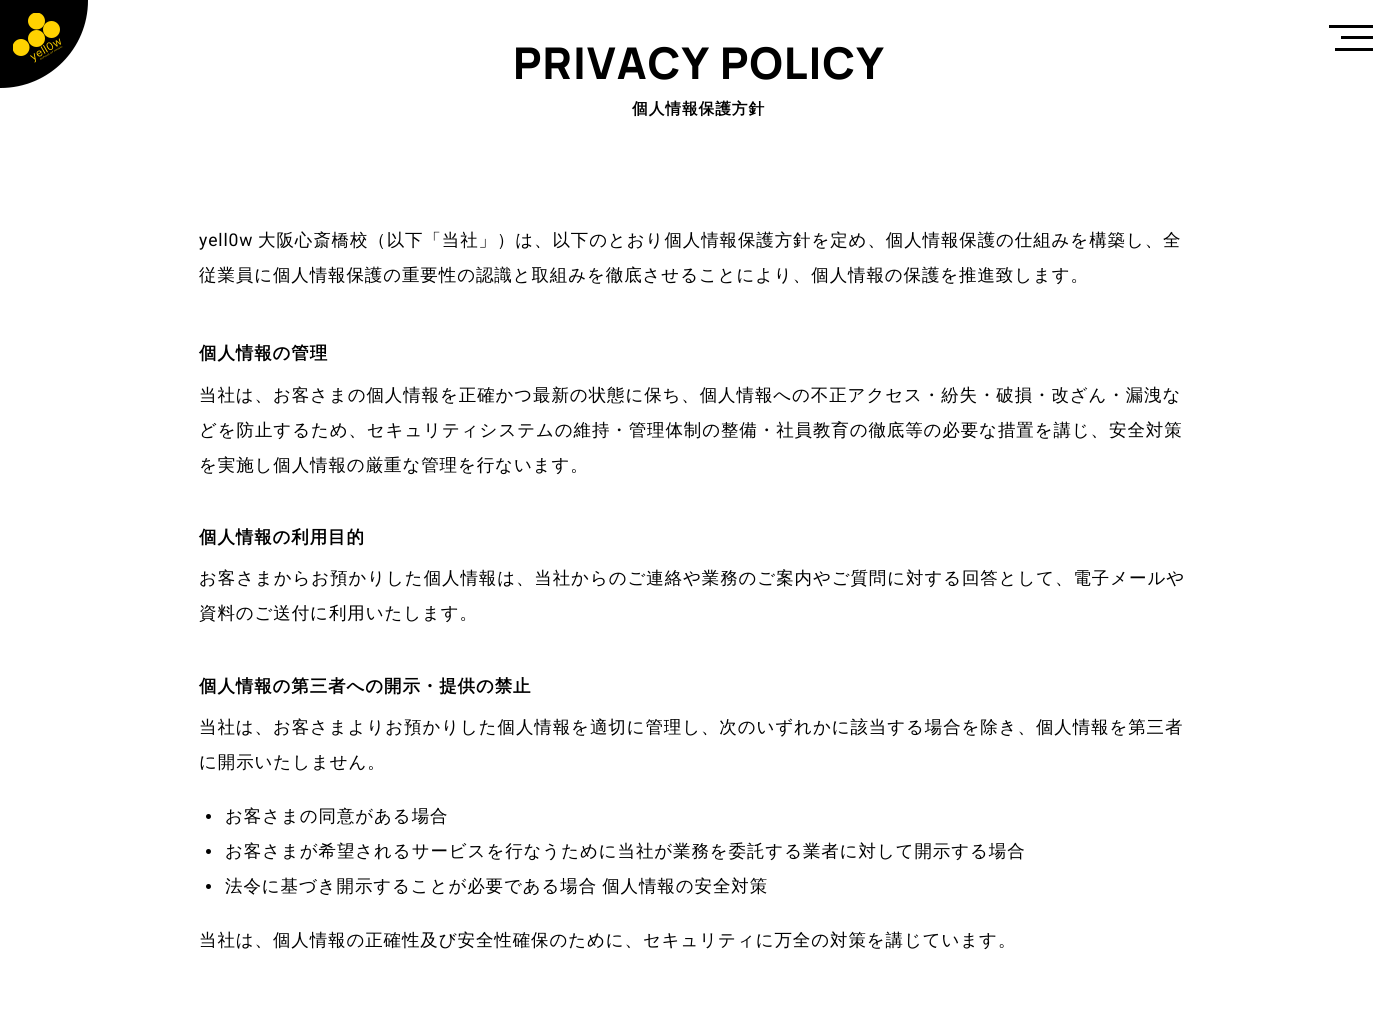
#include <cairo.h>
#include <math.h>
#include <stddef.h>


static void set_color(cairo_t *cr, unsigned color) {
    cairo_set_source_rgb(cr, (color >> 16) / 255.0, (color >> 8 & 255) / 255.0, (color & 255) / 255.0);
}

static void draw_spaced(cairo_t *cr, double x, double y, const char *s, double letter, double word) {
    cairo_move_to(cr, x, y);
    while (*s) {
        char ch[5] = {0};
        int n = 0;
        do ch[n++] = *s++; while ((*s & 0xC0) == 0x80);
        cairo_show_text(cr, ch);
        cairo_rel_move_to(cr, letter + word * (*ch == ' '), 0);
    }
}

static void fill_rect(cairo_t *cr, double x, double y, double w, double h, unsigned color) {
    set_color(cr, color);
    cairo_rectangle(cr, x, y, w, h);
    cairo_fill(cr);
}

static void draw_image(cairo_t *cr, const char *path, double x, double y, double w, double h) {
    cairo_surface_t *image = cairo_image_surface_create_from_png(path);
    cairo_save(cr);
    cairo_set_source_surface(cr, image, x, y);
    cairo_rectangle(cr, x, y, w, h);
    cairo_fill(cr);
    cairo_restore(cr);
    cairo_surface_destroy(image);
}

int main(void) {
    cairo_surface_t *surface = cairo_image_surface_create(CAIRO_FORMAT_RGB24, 1397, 1010);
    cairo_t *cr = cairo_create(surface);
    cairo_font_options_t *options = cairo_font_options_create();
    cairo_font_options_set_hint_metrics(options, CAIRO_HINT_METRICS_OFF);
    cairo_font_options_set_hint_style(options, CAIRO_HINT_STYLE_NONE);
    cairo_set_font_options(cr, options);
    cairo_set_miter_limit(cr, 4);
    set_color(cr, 0xFFFFFF);
    cairo_paint(cr);
    set_color(cr, 0x000000);
    cairo_arc(cr, 0.5, 0.5, 87.5, 0, 2 * M_PI);
    cairo_fill(cr);
    draw_image(cr, "assets/img1.png", 13, 13, 50, 50);
    fill_rect(cr, 1329, 25, 44, 3, 0x000000);
    fill_rect(cr, 1341, 36, 32, 3, 0x000000);
    fill_rect(cr, 1335, 48, 38, 3, 0x000000);
    cairo_select_font_face(cr, "Manrope ExtraLight", CAIRO_FONT_SLANT_NORMAL, CAIRO_FONT_WEIGHT_NORMAL);
    cairo_set_font_size(cr, 43.75);
    draw_spaced(cr, 513, 79, "PRIVACY POLICY", 1.1, 0);
    cairo_select_font_face(cr, "WenQuanYi Zen Hei", CAIRO_FONT_SLANT_NORMAL, CAIRO_FONT_WEIGHT_BOLD);
    cairo_set_font_size(cr, 15.75);
    draw_spaced(cr, 632, 114, "個人情報保護方針", 0.88, 0);
    cairo_select_font_face(cr, "Roboto", CAIRO_FONT_SLANT_NORMAL, CAIRO_FONT_WEIGHT_NORMAL);
    cairo_set_font_size(cr, 17.5);
    draw_spaced(cr, 199, 246, "yell0w", 0.88, 0);
    cairo_select_font_face(cr, "WenQuanYi Zen Hei Medium", CAIRO_FONT_SLANT_NORMAL, CAIRO_FONT_WEIGHT_NORMAL);
    draw_spaced(cr, 258, 246, "大阪心斎橋校（以下「当社」）は、以下のとおり個人情報保護方針を定め、個人情報保護の仕組みを構築し、全", 0.88, 0);
    draw_spaced(cr, 199, 281, "従業員に個人情報保護の重要性の認識と取組みを徹底させることにより、個人情報の保護を推進致します。", 0.88, 0);
    cairo_select_font_face(cr, "WenQuanYi Zen Hei", CAIRO_FONT_SLANT_NORMAL, CAIRO_FONT_WEIGHT_BOLD);
    draw_spaced(cr, 199, 359, "個人情報の管理", 0.88, 0);
    cairo_select_font_face(cr, "WenQuanYi Zen Hei Medium", CAIRO_FONT_SLANT_NORMAL, CAIRO_FONT_WEIGHT_NORMAL);
    draw_spaced(cr, 199, 401, "当社は、お客さまの個人情報を正確かつ最新の状態に保ち、個人情報への不正アクセス・紛失・破損・改ざん・漏洩な", 0.88, 0);
    draw_spaced(cr, 199, 436, "どを防止するため、セキュリティシステムの維持・管理体制の整備・社員教育の徹底等の必要な措置を講じ、安全対策", 0.88, 0);
    draw_spaced(cr, 199, 471, "を実施し個人情報の厳重な管理を行ないます。", 0.88, 0);
    cairo_select_font_face(cr, "WenQuanYi Zen Hei", CAIRO_FONT_SLANT_NORMAL, CAIRO_FONT_WEIGHT_BOLD);
    draw_spaced(cr, 199, 543, "個人情報の利用目的", 0.88, 0);
    cairo_select_font_face(cr, "WenQuanYi Zen Hei Medium", CAIRO_FONT_SLANT_NORMAL, CAIRO_FONT_WEIGHT_NORMAL);
    draw_spaced(cr, 199, 584, "お客さまからお預かりした個人情報は、当社からのご連絡や業務のご案内やご質問に対する回答として、電子メールや", 0.88, 0);
    draw_spaced(cr, 199, 619, "資料のご送付に利用いたします。", 0.88, 0);
    cairo_select_font_face(cr, "WenQuanYi Zen Hei", CAIRO_FONT_SLANT_NORMAL, CAIRO_FONT_WEIGHT_BOLD);
    draw_spaced(cr, 199, 692, "個人情報の第三者への開示・提供の禁止", 0.88, 0);
    cairo_select_font_face(cr, "WenQuanYi Zen Hei Medium", CAIRO_FONT_SLANT_NORMAL, CAIRO_FONT_WEIGHT_NORMAL);
    draw_spaced(cr, 199, 733, "当社は、お客さまよりお預かりした個人情報を適切に管理し、次のいずれかに該当する場合を除き、個人情報を第三者", 0.88, 0);
    draw_spaced(cr, 199, 768, "に開示いたしません。", 0.88, 0);
    cairo_new_path(cr);
    cairo_arc(cr, 208.5, 816.5, 2.5, 0, 2 * M_PI);
    cairo_fill(cr);
    draw_spaced(cr, 225, 822, "お客さまの同意がある場合", 0.88, 0);
    cairo_new_path(cr);
    cairo_arc(cr, 208.5, 851.5, 2.5, 0, 2 * M_PI);
    cairo_fill(cr);
    draw_spaced(cr, 225, 857, "お客さまが希望されるサービスを行なうために当社が業務を委託する業者に対して開示する場合", 0.88, 0);
    cairo_new_path(cr);
    cairo_arc(cr, 208.5, 886.5, 2.5, 0, 2 * M_PI);
    cairo_fill(cr);
    draw_spaced(cr, 225, 892, "法令に基づき開示することが必要である場合 個人情報の安全対策", 0.88, -1);
    draw_spaced(cr, 199, 946, "当社は、個人情報の正確性及び安全性確保のために、セキュリティに万全の対策を講じています。", 0.88, 0);
    cairo_surface_write_to_png(surface, "output.png");
    cairo_font_options_destroy(options);
    cairo_destroy(cr);
    cairo_surface_destroy(surface);
    return 0;
}
